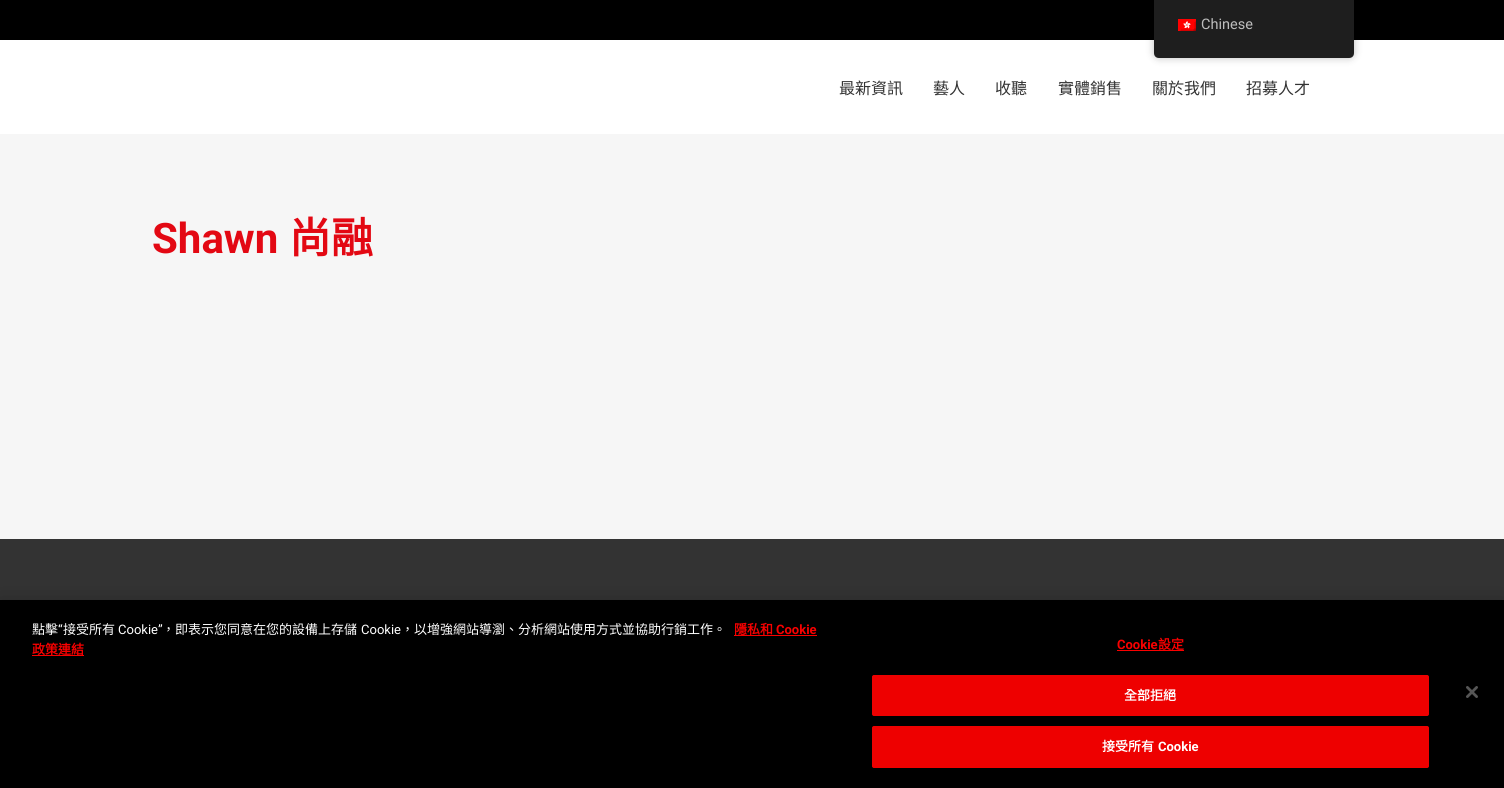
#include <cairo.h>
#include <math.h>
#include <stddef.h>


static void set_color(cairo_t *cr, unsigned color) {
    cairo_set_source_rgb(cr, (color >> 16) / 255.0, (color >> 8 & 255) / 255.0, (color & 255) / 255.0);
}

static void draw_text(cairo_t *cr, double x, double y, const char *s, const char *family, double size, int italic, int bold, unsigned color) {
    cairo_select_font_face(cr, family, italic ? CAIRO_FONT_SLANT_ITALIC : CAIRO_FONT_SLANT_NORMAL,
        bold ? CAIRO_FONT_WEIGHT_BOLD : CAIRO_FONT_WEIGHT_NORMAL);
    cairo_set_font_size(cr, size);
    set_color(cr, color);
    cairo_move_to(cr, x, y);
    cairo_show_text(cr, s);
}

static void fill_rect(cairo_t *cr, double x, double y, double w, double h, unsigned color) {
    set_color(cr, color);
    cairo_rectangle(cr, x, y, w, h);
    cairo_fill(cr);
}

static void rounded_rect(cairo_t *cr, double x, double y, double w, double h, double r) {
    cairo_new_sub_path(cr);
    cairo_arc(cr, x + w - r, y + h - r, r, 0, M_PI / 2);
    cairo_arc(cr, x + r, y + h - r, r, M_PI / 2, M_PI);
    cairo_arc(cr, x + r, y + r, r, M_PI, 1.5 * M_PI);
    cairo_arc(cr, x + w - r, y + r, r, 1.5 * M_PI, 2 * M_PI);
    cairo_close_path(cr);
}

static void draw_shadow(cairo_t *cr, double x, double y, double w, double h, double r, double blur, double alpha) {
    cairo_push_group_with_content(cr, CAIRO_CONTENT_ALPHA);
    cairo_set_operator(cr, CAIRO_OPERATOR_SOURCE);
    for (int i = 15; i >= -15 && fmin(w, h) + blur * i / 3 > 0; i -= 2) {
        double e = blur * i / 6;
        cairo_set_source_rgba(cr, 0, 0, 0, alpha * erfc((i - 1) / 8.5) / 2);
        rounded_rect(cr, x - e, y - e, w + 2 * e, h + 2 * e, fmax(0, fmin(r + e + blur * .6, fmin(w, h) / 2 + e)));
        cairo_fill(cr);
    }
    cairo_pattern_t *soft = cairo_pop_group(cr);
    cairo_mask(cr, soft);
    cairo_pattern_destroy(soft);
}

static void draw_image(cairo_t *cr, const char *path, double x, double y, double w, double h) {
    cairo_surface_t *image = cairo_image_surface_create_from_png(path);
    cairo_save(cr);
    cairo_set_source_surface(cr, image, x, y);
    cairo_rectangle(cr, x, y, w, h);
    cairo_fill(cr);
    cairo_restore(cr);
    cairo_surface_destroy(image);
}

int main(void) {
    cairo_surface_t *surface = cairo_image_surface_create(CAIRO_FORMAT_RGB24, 1504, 788);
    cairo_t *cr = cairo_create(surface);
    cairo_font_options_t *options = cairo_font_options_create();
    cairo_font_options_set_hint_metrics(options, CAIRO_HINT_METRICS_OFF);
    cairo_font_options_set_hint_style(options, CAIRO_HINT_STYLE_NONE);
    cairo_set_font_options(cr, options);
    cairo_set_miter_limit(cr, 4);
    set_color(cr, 0xF6F6F6);
    cairo_paint(cr);
    fill_rect(cr, 0, 0, 1504, 40, 0x000000);
    fill_rect(cr, 0, 40, 1504, 94, 0xFFFFFF);
    set_color(cr, 0x000000);
    draw_shadow(cr, 1154, 0, 200, 58, 5, 4, 0.25);
    set_color(cr, 0x1E1E1E);
    cairo_new_path(cr);
    cairo_move_to(cr, 1154, 0);
    cairo_line_to(cr, 1354, 0);
    cairo_line_to(cr, 1354, 53);
    cairo_curve_to(cr, 1354, 56, 1352, 58, 1349, 58);
    cairo_line_to(cr, 1159, 58);
    cairo_curve_to(cr, 1156, 58, 1154, 56, 1154, 53);
    cairo_close_path(cr);
    cairo_fill(cr);
    draw_image(cr, "assets/img1.png", 1178, 19, 18, 12);
    draw_text(cr, 1201, 29, "Chinese", "Roboto", 14.5, 0, 0, 0xBDBDBD);
    draw_text(cr, 839, 94, "最新資訊", "Noto Sans CJK HK", 16, 0, 0, 0x333333);
    draw_text(cr, 933, 94, "藝人", "Noto Sans CJK HK", 16, 0, 0, 0x333333);
    draw_text(cr, 995, 94, "收聽", "Noto Sans CJK HK", 16, 0, 0, 0x333333);
    draw_text(cr, 1058, 94, "實體銷售", "Noto Sans CJK HK", 16, 0, 0, 0x333333);
    draw_text(cr, 1152, 94, "關於我們", "Noto Sans CJK HK", 16, 0, 0, 0x333333);
    draw_text(cr, 1246, 94, "招募人才", "Noto Sans CJK HK", 16, 0, 0, 0x333333);
    draw_text(cr, 152, 253, "Shawn", "Roboto", 42, 0, 1, 0xE30813);
    draw_text(cr, 289, 253, "尚融", "Noto Sans CJK HK", 42, 0, 1, 0xE30813);
    fill_rect(cr, 0, 539, 1504, 61, 0x333333);
    set_color(cr, 0x000000);
    draw_shadow(cr, 0, 600, 1504, 188, 0, 9, 0.2);
    fill_rect(cr, 0, 600, 1504, 188, 0x000000);
    draw_text(cr, 32, 634, "點擊", "Noto Sans CJK HK", 13, 0, 0, 0xFFFFFF);
    draw_text(cr, 58, 634, "“", "Roboto", 13, 0, 0, 0xFFFFFF);
    draw_text(cr, 63, 634, "接受所有", "Noto Sans CJK HK", 13, 0, 0, 0xFFFFFF);
    draw_text(cr, 118, 634, "Cookie”", "Roboto", 13, 0, 0, 0xFFFFFF);
    draw_text(cr, 162, 634, "，即表示您同意在您的設備上存儲", "Noto Sans CJK HK", 13, 0, 0, 0xFFFFFF);
    draw_text(cr, 361, 634, "Cookie", "Roboto", 13, 0, 0, 0xFFFFFF);
    draw_text(cr, 401, 634, "，以增強網站導瀏、分析網站使用方式並協助行銷工作。", "Noto Sans CJK HK", 13, 0, 0, 0xFFFFFF);
    draw_text(cr, 734, 634, "隱私和", "Noto Sans CJK HK", 13, 0, 1, 0xF90000);
    draw_text(cr, 776, 634, "Cookie", "Roboto", 13, 0, 1, 0xF90000);
    fill_rect(cr, 734, 635, 83, 1, 0xF90000);
    fill_rect(cr, 32, 655, 52, 1, 0xF90000);
    draw_text(cr, 32, 654, "政策連結", "Noto Sans CJK HK", 13, 0, 1, 0xF90000);
    draw_text(cr, 1117, 649, "Cookie", "Roboto", 13, 0, 1, 0xF90000);
    fill_rect(cr, 1117, 650, 67, 1, 0xF90000);
    draw_text(cr, 1158, 649, "設定", "Noto Sans CJK HK", 13, 0, 1, 0xF90000);
    set_color(cr, 0xEE0000);
    rounded_rect(cr, 872.5, 675.5, 556, 40, 1.5);
    cairo_fill_preserve(cr);
    cairo_set_line_width(cr, 1);
    cairo_stroke(cr);
    draw_text(cr, 1124, 700, "全部拒絕", "Noto Sans CJK HK", 13, 0, 1, 0xFFFFFF);
    set_color(cr, 0xEE0000);
    rounded_rect(cr, 872.5, 726.5, 556, 41, 1.5);
    cairo_fill_preserve(cr);
    cairo_stroke(cr);
    draw_text(cr, 1102, 751, "接受所有", "Noto Sans CJK HK", 13, 0, 1, 0xFFFFFF);
    draw_text(cr, 1158, 751, "Cookie", "Roboto", 13, 0, 1, 0xFFFFFF);
    draw_image(cr, "assets/img2.png", 1466, 686, 12, 12);
    cairo_surface_write_to_png(surface, "output.png");
    cairo_font_options_destroy(options);
    cairo_destroy(cr);
    cairo_surface_destroy(surface);
    return 0;
}
